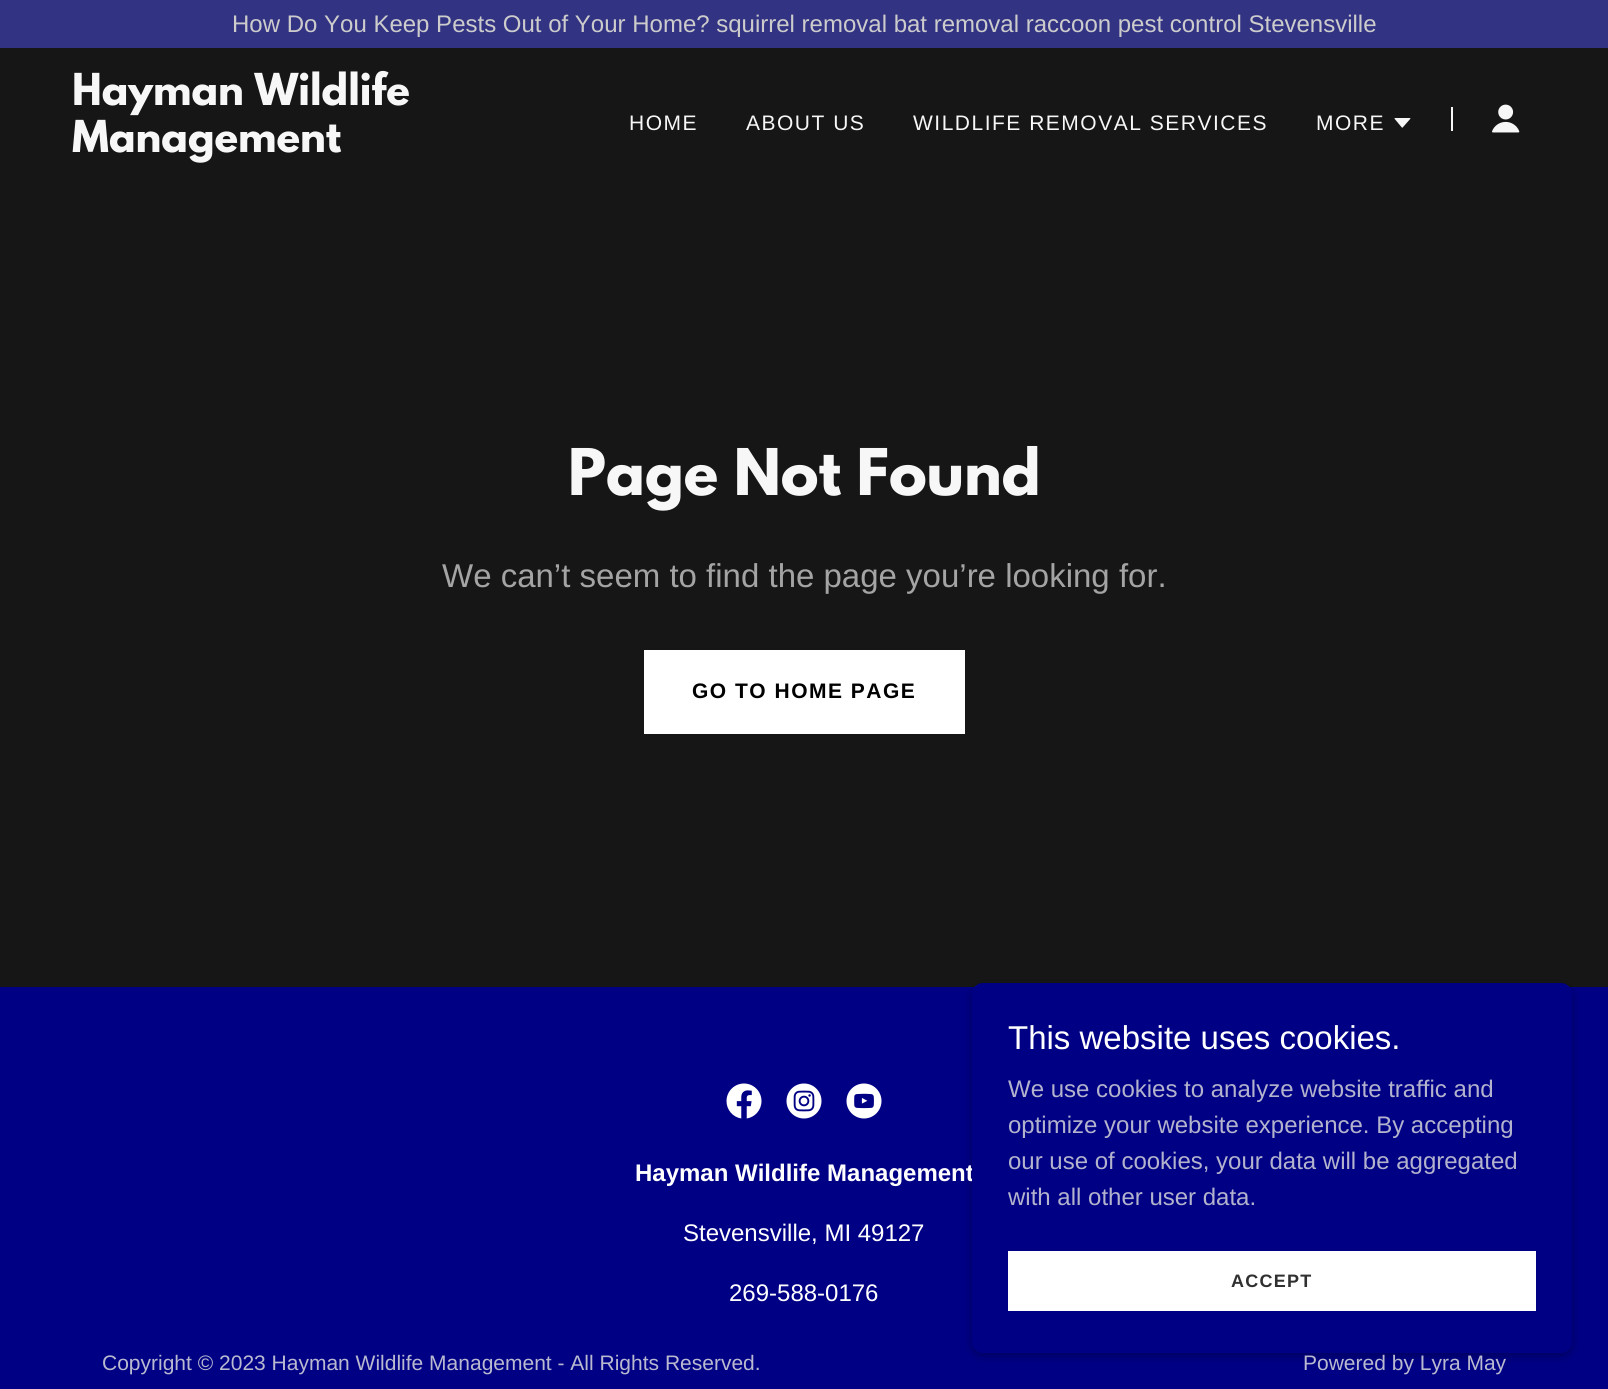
#include <cairo.h>
#include <math.h>
#include <stddef.h>


static void set_color(cairo_t *cr, unsigned color) {
    cairo_set_source_rgb(cr, (color >> 16) / 255.0, (color >> 8 & 255) / 255.0, (color & 255) / 255.0);
}

static void draw_text(cairo_t *cr, double x, double y, const char *s, const char *family, double size, int italic, int bold, unsigned color) {
    cairo_select_font_face(cr, family, italic ? CAIRO_FONT_SLANT_ITALIC : CAIRO_FONT_SLANT_NORMAL,
        bold ? CAIRO_FONT_WEIGHT_BOLD : CAIRO_FONT_WEIGHT_NORMAL);
    cairo_set_font_size(cr, size);
    set_color(cr, color);
    cairo_move_to(cr, x, y);
    cairo_show_text(cr, s);
}

static void draw_spaced(cairo_t *cr, double x, double y, const char *s, double letter, double word) {
    cairo_move_to(cr, x, y);
    while (*s) {
        char ch[5] = {0};
        int n = 0;
        do ch[n++] = *s++; while ((*s & 0xC0) == 0x80);
        cairo_show_text(cr, ch);
        cairo_rel_move_to(cr, letter + word * (*ch == ' '), 0);
    }
}

static void fill_rect(cairo_t *cr, double x, double y, double w, double h, unsigned color) {
    set_color(cr, color);
    cairo_rectangle(cr, x, y, w, h);
    cairo_fill(cr);
}

static void rounded_rect(cairo_t *cr, double x, double y, double w, double h, double r) {
    cairo_new_sub_path(cr);
    cairo_arc(cr, x + w - r, y + h - r, r, 0, M_PI / 2);
    cairo_arc(cr, x + r, y + h - r, r, M_PI / 2, M_PI);
    cairo_arc(cr, x + r, y + r, r, M_PI, 1.5 * M_PI);
    cairo_arc(cr, x + w - r, y + r, r, 1.5 * M_PI, 2 * M_PI);
    cairo_close_path(cr);
}

static void draw_shadow(cairo_t *cr, double x, double y, double w, double h, double r, double blur, double alpha) {
    cairo_push_group_with_content(cr, CAIRO_CONTENT_ALPHA);
    cairo_set_operator(cr, CAIRO_OPERATOR_SOURCE);
    for (int i = 15; i >= -15 && fmin(w, h) + blur * i / 3 > 0; i -= 2) {
        double e = blur * i / 6;
        cairo_set_source_rgba(cr, 0, 0, 0, alpha * erfc((i - 1) / 8.5) / 2);
        rounded_rect(cr, x - e, y - e, w + 2 * e, h + 2 * e, fmax(0, fmin(r + e + blur * .6, fmin(w, h) / 2 + e)));
        cairo_fill(cr);
    }
    cairo_pattern_t *soft = cairo_pop_group(cr);
    cairo_mask(cr, soft);
    cairo_pattern_destroy(soft);
}

static void draw_image(cairo_t *cr, const char *path, double x, double y, double w, double h) {
    cairo_surface_t *image = cairo_image_surface_create_from_png(path);
    cairo_save(cr);
    cairo_set_source_surface(cr, image, x, y);
    cairo_rectangle(cr, x, y, w, h);
    cairo_fill(cr);
    cairo_restore(cr);
    cairo_surface_destroy(image);
}

int main(void) {
    cairo_surface_t *surface = cairo_image_surface_create(CAIRO_FORMAT_RGB24, 1608, 1389);
    cairo_t *cr = cairo_create(surface);
    cairo_font_options_t *options = cairo_font_options_create();
    cairo_font_options_set_hint_metrics(options, CAIRO_HINT_METRICS_OFF);
    cairo_font_options_set_hint_style(options, CAIRO_HINT_STYLE_NONE);
    cairo_set_font_options(cr, options);
    cairo_set_miter_limit(cr, 4);
    set_color(cr, 0x000085);
    cairo_paint(cr);
    fill_rect(cr, 0, 48, 1608, 939, 0x161616);
    fill_rect(cr, 0, 0, 1608, 48, 0x333383);
    draw_text(cr, 232, 32, "How Do You Keep Pests Out of Your Home? squirrel removal bat removal raccoon pest control Stevensville", "Liberation Sans", 24, 0, 0, 0xCCCCCC);
    draw_text(cr, 72, 105, "Hayman Wildlife", "League Spartan", 39, 0, 1, 0xF7F7F7);
    draw_text(cr, 72, 152, "Management", "League Spartan", 39, 0, 1, 0xF7F7F7);
    cairo_select_font_face(cr, "Liberation Sans", CAIRO_FONT_SLANT_NORMAL, CAIRO_FONT_WEIGHT_NORMAL);
    cairo_set_font_size(cr, 21);
    draw_spaced(cr, 629, 130, "HOME", 1.5, 0);
    draw_spaced(cr, 746, 130, "ABOUT US", 1.5, 0);
    draw_spaced(cr, 913, 130, "WILDLIFE REMOVAL SERVICES", 1.5, 0);
    draw_spaced(cr, 1316, 130, "MORE", 1.5, 0);
    draw_image(cr, "assets/img1.png", 1394, 118, 17, 10);
    fill_rect(cr, 1451, 107, 2, 24, 0xF7F7F7);
    draw_image(cr, "assets/img2.png", 1492, 104, 28, 29);
    draw_text(cr, 568, 495, "Page Not Found", "League Spartan", 57, 0, 1, 0xF7F7F7);
    draw_text(cr, 442, 587, "We can’t seem to find the page you’re looking for.", "Liberation Sans", 33, 0, 0, 0xA4A4A4);
    fill_rect(cr, 644, 650, 321, 84, 0xFFFFFF);
    cairo_select_font_face(cr, "Liberation Sans", CAIRO_FONT_SLANT_NORMAL, CAIRO_FONT_WEIGHT_BOLD);
    cairo_set_font_size(cr, 21);
    set_color(cr, 0x000000);
    draw_spaced(cr, 692, 698, "GO TO HOME PAGE", 1.5, 0);
    set_color(cr, 0x000000);
    draw_shadow(cr, 972, 986, 600, 370, 11, 4.5, 0.3);
    draw_text(cr, 635, 1181, "Hayman Wildlife Management", "Liberation Sans", 24, 0, 1, 0xFFFFFF);
    set_color(cr, 0x000085);
    rounded_rect(cr, 972, 983, 600, 370, 11);
    cairo_fill(cr);
    draw_text(cr, 1008, 1049, "This website uses cookies.", "Liberation Sans", 33, 0, 0, 0xFFFFFF);
    draw_text(cr, 1008, 1097, "We use cookies to analyze website traffic and", "Liberation Sans", 24, 0, 0, 0xB3B3CD);
    draw_text(cr, 1008, 1133, "optimize your website experience. By accepting", "Liberation Sans", 24, 0, 0, 0xB3B3CD);
    draw_text(cr, 1008, 1169, "our use of cookies, your data will be aggregated", "Liberation Sans", 24, 0, 0, 0xB3B3CD);
    draw_text(cr, 1008, 1205, "with all other user data.", "Liberation Sans", 24, 0, 0, 0xB3B3CD);
    fill_rect(cr, 1008, 1251, 528, 60, 0xFFFFFF);
    cairo_select_font_face(cr, "Liberation Sans", CAIRO_FONT_SLANT_NORMAL, CAIRO_FONT_WEIGHT_BOLD);
    cairo_set_font_size(cr, 18);
    set_color(cr, 0x303030);
    draw_spaced(cr, 1231, 1287, "ACCEPT", 1.25, 0);
    draw_image(cr, "assets/img3.png", 726, 1083, 36, 36);
    draw_image(cr, "assets/img4.png", 786, 1083, 36, 36);
    draw_image(cr, "assets/img5.png", 846, 1083, 36, 36);
    draw_text(cr, 683, 1241, "Stevensville, MI 49127", "Liberation Sans", 24, 0, 0, 0xFFFFFF);
    draw_text(cr, 729, 1301, "269-588-0176", "Liberation Sans", 24, 0, 0, 0xFFFFFF);
    draw_text(cr, 102, 1370, "Copyright © 2023 Hayman Wildlife Management - All Rights Reserved.", "Liberation Sans", 21, 0, 0, 0xB9B9CF);
    draw_text(cr, 1303, 1370, "Powered by Lyra May", "Liberation Sans", 21, 0, 0, 0xB9B9CF);
    cairo_surface_write_to_png(surface, "output.png");
    cairo_font_options_destroy(options);
    cairo_destroy(cr);
    cairo_surface_destroy(surface);
    return 0;
}
